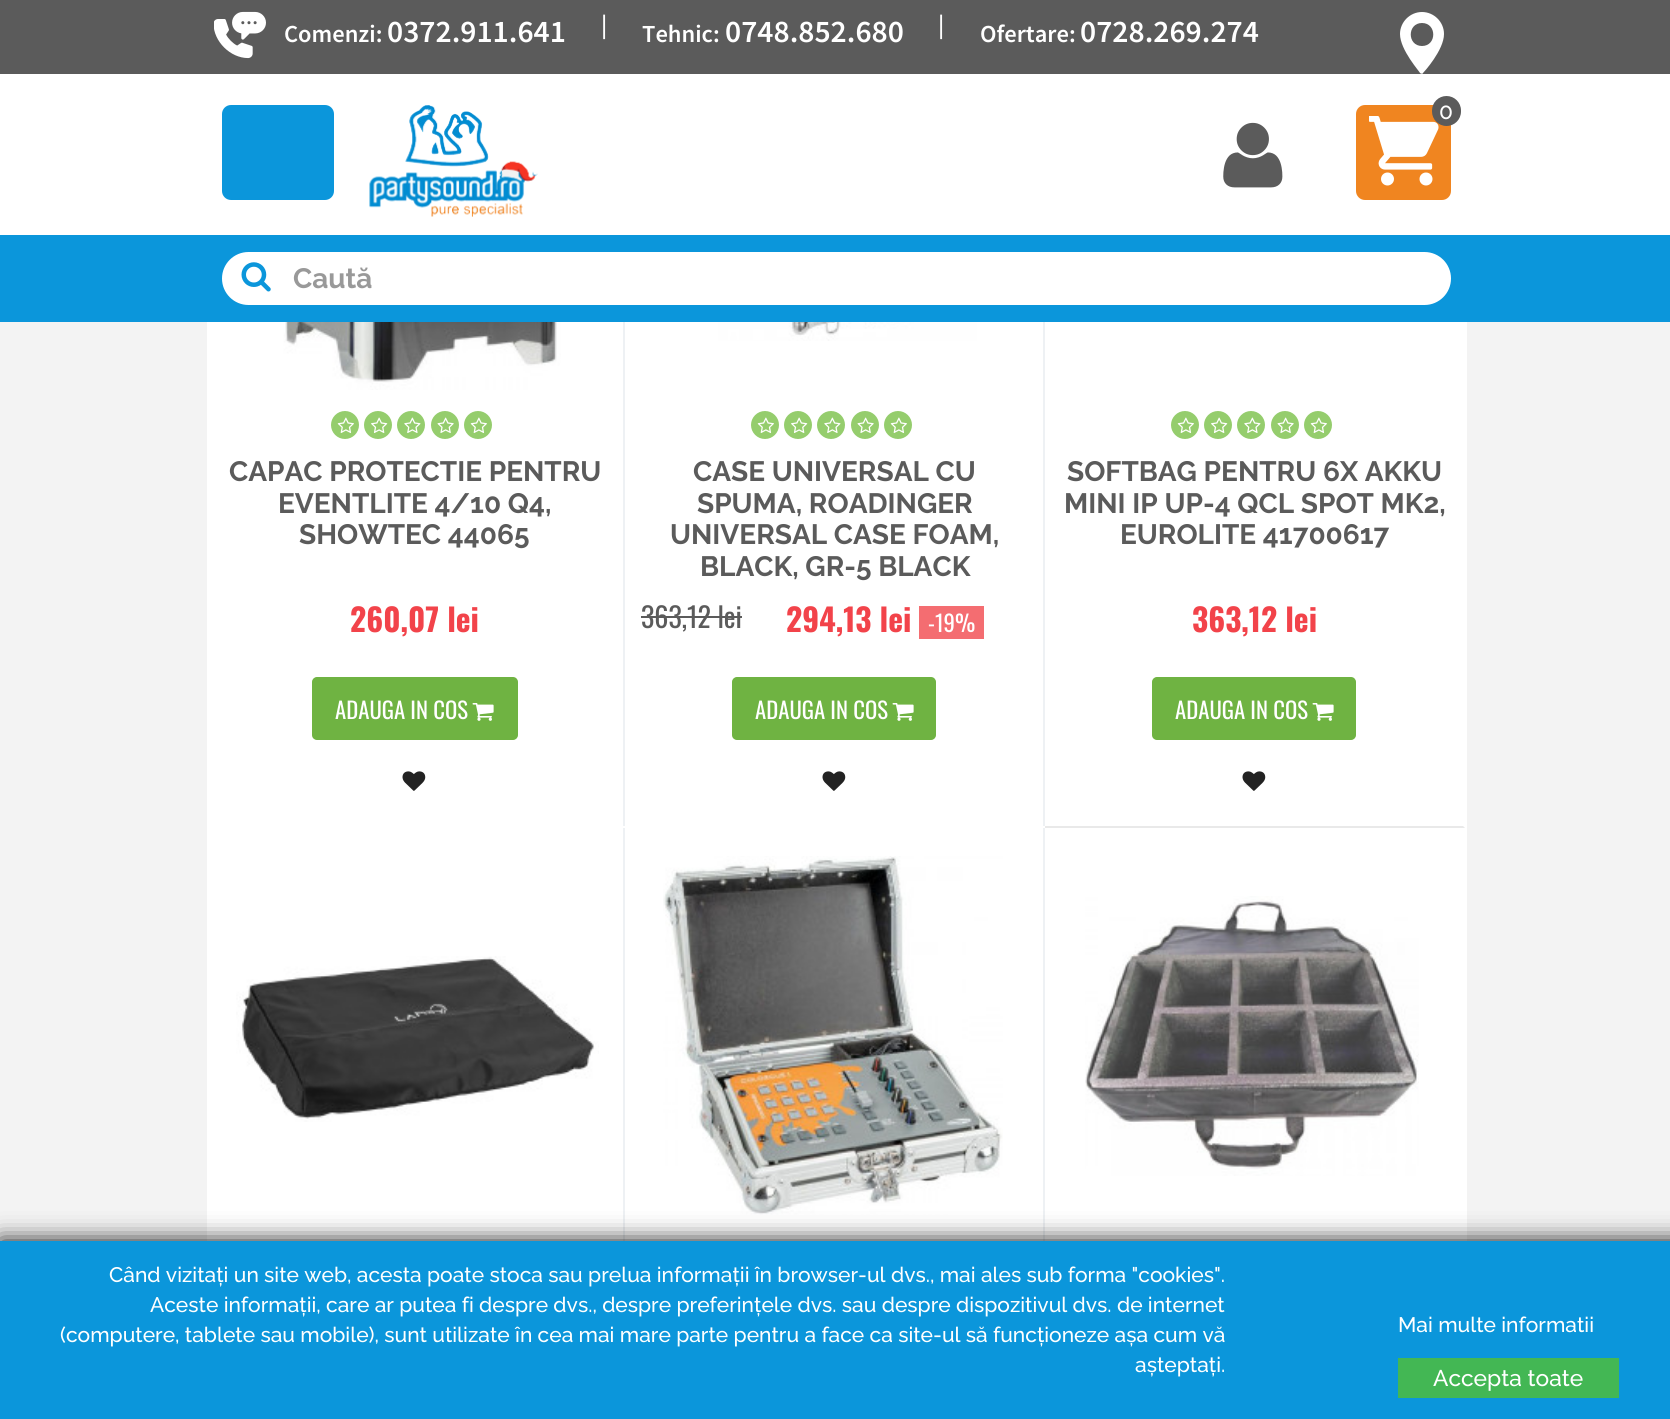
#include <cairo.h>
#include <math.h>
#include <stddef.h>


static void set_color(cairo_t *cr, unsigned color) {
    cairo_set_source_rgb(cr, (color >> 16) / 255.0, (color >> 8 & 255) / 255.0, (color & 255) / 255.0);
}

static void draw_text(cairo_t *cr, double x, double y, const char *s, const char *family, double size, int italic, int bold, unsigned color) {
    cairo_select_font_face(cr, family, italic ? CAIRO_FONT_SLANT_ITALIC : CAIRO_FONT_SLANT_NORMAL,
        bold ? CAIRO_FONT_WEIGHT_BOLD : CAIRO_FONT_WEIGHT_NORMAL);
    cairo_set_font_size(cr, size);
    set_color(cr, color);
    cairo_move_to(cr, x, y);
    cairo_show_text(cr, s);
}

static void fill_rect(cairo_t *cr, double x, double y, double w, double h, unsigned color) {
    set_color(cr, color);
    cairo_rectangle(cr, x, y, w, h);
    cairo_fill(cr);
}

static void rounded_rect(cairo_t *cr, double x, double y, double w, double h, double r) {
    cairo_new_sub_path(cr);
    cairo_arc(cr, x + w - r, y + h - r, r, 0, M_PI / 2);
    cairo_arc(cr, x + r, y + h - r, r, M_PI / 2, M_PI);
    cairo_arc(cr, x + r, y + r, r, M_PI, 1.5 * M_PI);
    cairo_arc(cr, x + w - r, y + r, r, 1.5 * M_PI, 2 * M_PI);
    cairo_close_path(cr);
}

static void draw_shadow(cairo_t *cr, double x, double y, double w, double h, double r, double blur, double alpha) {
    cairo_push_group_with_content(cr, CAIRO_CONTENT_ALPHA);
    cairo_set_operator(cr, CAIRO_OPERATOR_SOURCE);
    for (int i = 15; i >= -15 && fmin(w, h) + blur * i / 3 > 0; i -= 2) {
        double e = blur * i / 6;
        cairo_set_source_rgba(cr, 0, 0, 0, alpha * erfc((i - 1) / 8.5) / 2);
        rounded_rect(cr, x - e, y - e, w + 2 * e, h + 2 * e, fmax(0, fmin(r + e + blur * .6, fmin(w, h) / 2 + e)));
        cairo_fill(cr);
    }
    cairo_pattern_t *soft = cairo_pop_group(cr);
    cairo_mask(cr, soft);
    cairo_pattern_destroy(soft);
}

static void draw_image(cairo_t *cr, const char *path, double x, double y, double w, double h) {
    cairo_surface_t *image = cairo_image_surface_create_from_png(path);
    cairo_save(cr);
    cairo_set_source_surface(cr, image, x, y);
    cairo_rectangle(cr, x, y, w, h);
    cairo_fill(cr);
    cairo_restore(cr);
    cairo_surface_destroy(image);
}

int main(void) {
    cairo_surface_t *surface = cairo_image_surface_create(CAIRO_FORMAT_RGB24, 1670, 1419);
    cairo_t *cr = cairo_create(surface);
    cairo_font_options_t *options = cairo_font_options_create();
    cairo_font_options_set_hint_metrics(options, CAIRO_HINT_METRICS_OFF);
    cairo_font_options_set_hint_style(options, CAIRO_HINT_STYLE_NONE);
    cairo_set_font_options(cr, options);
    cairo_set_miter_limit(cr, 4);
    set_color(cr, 0xF3F3F3);
    cairo_paint(cr);
    fill_rect(cr, 0, 74, 1670, 161, 0xFFFFFF);
    fill_rect(cr, 0, 0, 1670, 74, 0x5B5B5B);
    draw_image(cr, "assets/img1.png", 214, 11, 52, 48);
    draw_text(cr, 284, 42, "Comenzi:", "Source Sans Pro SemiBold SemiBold", 24.5, 0, 0, 0xFFFFFF);
    draw_text(cr, 387, 42, "0372.911.641", "Source Sans Pro SemiBold SemiBold", 31.5, 0, 0, 0xFFFFFF);
    draw_text(cr, 601, 33, "|", "Source Sans Pro SemiBold SemiBold", 24.5, 0, 0, 0xFFFFFF);
    draw_text(cr, 642, 42, "Tehnic:", "Source Sans Pro SemiBold SemiBold", 24.5, 0, 0, 0xFFFFFF);
    draw_text(cr, 725, 42, "0748.852.680", "Source Sans Pro SemiBold SemiBold", 31.5, 0, 0, 0xFFFFFF);
    draw_text(cr, 938, 33, "|", "Source Sans Pro SemiBold SemiBold", 24.5, 0, 0, 0xFFFFFF);
    draw_text(cr, 980, 42, "Ofertare:", "Source Sans Pro SemiBold SemiBold", 24.5, 0, 0, 0xFFFFFF);
    draw_text(cr, 1080, 42, "0728.269.274", "Source Sans Pro SemiBold SemiBold", 31.5, 0, 0, 0xFFFFFF);
    cairo_new_path(cr);
    cairo_move_to(cr, 1422, 12);
    cairo_curve_to(cr, 1410, 12, 1400, 22, 1400, 34);
    cairo_curve_to(cr, 1400, 50, 1420, 72, 1420, 73);
    cairo_curve_to(cr, 1421, 74, 1423, 74, 1423, 73);
    cairo_curve_to(cr, 1424, 72, 1444, 50, 1444, 34);
    cairo_curve_to(cr, 1444, 22, 1434, 12, 1422, 12);
    cairo_close_path(cr);
    cairo_move_to(cr, 1422, 46);
    cairo_curve_to(cr, 1407, 46, 1407, 23, 1422, 23);
    cairo_curve_to(cr, 1437, 23, 1437, 46, 1422, 46);
    cairo_close_path(cr);
    cairo_fill(cr);
    set_color(cr, 0x0B96DB);
    rounded_rect(cr, 222, 105, 112, 95, 9);
    cairo_fill(cr);
    draw_image(cr, "assets/img2.png", 369, 105, 169, 112);
    set_color(cr, 0xF08520);
    rounded_rect(cr, 1356, 105, 95, 95, 9);
    cairo_fill(cr);
    draw_image(cr, "assets/img3.png", 1369, 116, 70, 70);
    set_color(cr, 0x5B5B5B);
    rounded_rect(cr, 1432, 96, 29, 30, 14.5);
    cairo_fill(cr);
    draw_text(cr, 1439, 119, "0", "Raleway Medium", 22.75, 0, 0, 0xFFFFFF);
    draw_image(cr, "assets/img4.png", 1223, 122, 60, 66);
    fill_rect(cr, 0, 235, 1670, 87, 0x0B96DB);
    set_color(cr, 0xFFFFFF);
    rounded_rect(cr, 223, 253, 1227, 51, 25.5);
    cairo_fill_preserve(cr);
    cairo_stroke(cr);
    draw_image(cr, "assets/img5.png", 241, 262, 30, 30);
    draw_text(cr, 293, 288, "Caută", "Raleway", 28, 0, 1, 0x999999);
    fill_rect(cr, 207, 322, 1260, 919, 0xFFFFFF);
    fill_rect(cr, 623, 322, 2, 504, 0xEEF1F4);
    draw_image(cr, "assets/img6.png", 283, 322, 278, 68);
    set_color(cr, 0x95CD6D);
    cairo_arc(cr, 345, 425, 14, 0, 2 * M_PI);
    cairo_fill(cr);
    draw_image(cr, "assets/img7.png", 337, 417, 17, 16);
    cairo_arc(cr, 378, 425, 14, 0, 2 * M_PI);
    cairo_fill(cr);
    draw_image(cr, "assets/img8.png", 371, 417, 17, 16);
    cairo_arc(cr, 411, 425, 14, 0, 2 * M_PI);
    cairo_fill(cr);
    draw_image(cr, "assets/img9.png", 404, 417, 17, 16);
    cairo_arc(cr, 445, 425, 14, 0, 2 * M_PI);
    cairo_fill(cr);
    draw_image(cr, "assets/img10.png", 437, 417, 17, 16);
    cairo_arc(cr, 478, 425, 14, 0, 2 * M_PI);
    cairo_fill(cr);
    draw_image(cr, "assets/img11.png", 470, 417, 17, 16);
    draw_text(cr, 229, 481, "CAPAC PROTECTIE PENTRU", "Raleway", 28, 0, 1, 0x5B5B5B);
    draw_text(cr, 278, 513, "EVENTLITE 4/10 Q4,", "Raleway", 28, 0, 1, 0x5B5B5B);
    draw_text(cr, 299, 544, "SHOWTEC 44065", "Raleway", 28, 0, 1, 0x5B5B5B);
    draw_text(cr, 350, 632, "260,07 lei", "Oswald", 31.5, 0, 1, 0xF2434A);
    set_color(cr, 0x6FB342);
    rounded_rect(cr, 313, 678, 204, 61, 4);
    cairo_fill_preserve(cr);
    cairo_stroke(cr);
    draw_text(cr, 335, 719, "ADAUGA IN COS", "Oswald", 22.75, 0, 0, 0xFFFFFF);
    draw_image(cr, "assets/img12.png", 472, 703, 22, 18);
    draw_image(cr, "assets/img13.png", 402, 771, 24, 20);
    fill_rect(cr, 1043, 322, 2, 504, 0xEEF1F4);
    draw_image(cr, "assets/img14.png", 718, 322, 259, 19);
    set_color(cr, 0x95CD6D);
    cairo_arc(cr, 765, 425, 14, 0, 2 * M_PI);
    cairo_fill(cr);
    draw_image(cr, "assets/img7.png", 757, 417, 17, 16);
    cairo_arc(cr, 798, 425, 14, 0, 2 * M_PI);
    cairo_fill(cr);
    draw_image(cr, "assets/img8.png", 791, 417, 17, 16);
    cairo_arc(cr, 831, 425, 14, 0, 2 * M_PI);
    cairo_fill(cr);
    draw_image(cr, "assets/img9.png", 824, 417, 17, 16);
    cairo_arc(cr, 865, 425, 14, 0, 2 * M_PI);
    cairo_fill(cr);
    draw_image(cr, "assets/img15.png", 857, 417, 17, 16);
    cairo_arc(cr, 898, 425, 14, 0, 2 * M_PI);
    cairo_fill(cr);
    draw_image(cr, "assets/img16.png", 890, 417, 17, 16);
    draw_text(cr, 693, 481, "CASE UNIVERSAL CU", "Raleway", 28, 0, 1, 0x5B5B5B);
    draw_text(cr, 697, 513, "SPUMA, ROADINGER", "Raleway", 28, 0, 1, 0x5B5B5B);
    draw_text(cr, 670, 544, "UNIVERSAL CASE FOAM,", "Raleway", 28, 0, 1, 0x5B5B5B);
    draw_text(cr, 700, 576, "BLACK, GR-5 BLACK", "Raleway", 28, 0, 1, 0x5B5B5B);
    draw_text(cr, 641, 628, "363,12 lei", "Oswald", 28, 0, 0, 0x5B5B5B);
    fill_rect(cr, 641, 616, 101, 2, 0x5B5B5B);
    draw_text(cr, 786, 632, "294,13 lei", "Oswald", 31.5, 0, 1, 0xF2434A);
    fill_rect(cr, 919, 606, 65, 33, 0xF46D71);
    draw_text(cr, 928, 632, "-19%", "Oswald", 22.75, 0, 0, 0xFFFFFF);
    set_color(cr, 0x6FB342);
    rounded_rect(cr, 733, 678, 202, 61, 4);
    cairo_fill_preserve(cr);
    cairo_stroke(cr);
    draw_text(cr, 755, 719, "ADAUGA IN COS", "Oswald", 22.75, 0, 0, 0xFFFFFF);
    draw_image(cr, "assets/img12.png", 892, 703, 22, 18);
    draw_image(cr, "assets/img13.png", 822, 771, 24, 20);
    set_color(cr, 0xE9E9E9);
    cairo_new_path(cr);
    cairo_move_to(cr, 1465, 828);
    cairo_line_to(cr, 1045, 828);
    cairo_line_to(cr, 1045, 826);
    cairo_line_to(cr, 1463, 826);
    cairo_close_path(cr);
    cairo_fill(cr);
    set_color(cr, 0x95CD6D);
    cairo_arc(cr, 1185, 425, 14, 0, 2 * M_PI);
    cairo_fill(cr);
    draw_image(cr, "assets/img7.png", 1177, 417, 17, 16);
    cairo_arc(cr, 1218, 425, 14, 0, 2 * M_PI);
    cairo_fill(cr);
    draw_image(cr, "assets/img8.png", 1211, 417, 17, 16);
    cairo_arc(cr, 1251, 425, 14, 0, 2 * M_PI);
    cairo_fill(cr);
    draw_image(cr, "assets/img9.png", 1244, 417, 17, 16);
    cairo_arc(cr, 1285, 425, 14, 0, 2 * M_PI);
    cairo_fill(cr);
    draw_image(cr, "assets/img15.png", 1277, 417, 17, 16);
    cairo_arc(cr, 1318, 425, 14, 0, 2 * M_PI);
    cairo_fill(cr);
    draw_image(cr, "assets/img7.png", 1310, 417, 17, 16);
    draw_text(cr, 1067, 481, "SOFTBAG PENTRU 6X AKKU", "Raleway", 28, 0, 1, 0x5B5B5B);
    draw_text(cr, 1064, 513, "MINI IP UP-4 QCL SPOT MK2,", "Raleway", 28, 0, 1, 0x5B5B5B);
    draw_text(cr, 1120, 544, "EUROLITE 41700617", "Raleway", 28, 0, 1, 0x5B5B5B);
    draw_text(cr, 1192, 632, "363,12 lei", "Oswald", 31.5, 0, 1, 0xF2434A);
    set_color(cr, 0x6FB342);
    rounded_rect(cr, 1153, 678, 202, 61, 4);
    cairo_fill_preserve(cr);
    cairo_stroke(cr);
    draw_text(cr, 1175, 719, "ADAUGA IN COS", "Oswald", 22.75, 0, 0, 0xFFFFFF);
    draw_image(cr, "assets/img12.png", 1312, 703, 22, 18);
    draw_image(cr, "assets/img13.png", 1242, 771, 24, 20);
    fill_rect(cr, 623, 828, 2, 413, 0xEEF1F4);
    draw_image(cr, "assets/img17.png", 236, 956, 363, 166);
    fill_rect(cr, 1043, 828, 2, 413, 0xEEF1F4);
    draw_image(cr, "assets/img18.png", 663, 856, 340, 359);
    draw_image(cr, "assets/img19.png", 1085, 896, 334, 280);
    set_color(cr, 0x121212);
    draw_shadow(cr, 0, 1241, 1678, 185, 0, 12, 1);
    fill_rect(cr, 0, 1241, 1670, 178, 0x0B96DB);
    draw_text(cr, 109, 1282, "Când vizitați un site web, acesta poate stoca sau prelua informații în browser-ul dvs., mai ales sub forma \"cookies\".", "Raleway Medium", 21, 0, 0, 0xFFFFFF);
    draw_text(cr, 150, 1312, "Aceste informații, care ar putea fi despre dvs., despre preferințele dvs. sau despre dispozitivul dvs. de internet", "Raleway Medium", 21, 0, 0, 0xFFFFFF);
    draw_text(cr, 60, 1342, "(computere, tablete sau mobile), sunt utilizate în cea mai mare parte pentru a face ca site-ul să funcționeze așa cum vă", "Raleway Medium", 21, 0, 0, 0xFFFFFF);
    draw_text(cr, 1135, 1372, "așteptați.", "Raleway Medium", 21, 0, 0, 0xFFFFFF);
    draw_text(cr, 1398, 1332, "Mai multe informatii", "Raleway Medium", 21, 0, 0, 0xFFFFFF);
    fill_rect(cr, 1398, 1358, 221, 40, 0x43B754);
    draw_text(cr, 1433, 1386, "Accepta toate", "Raleway Medium", 22.75, 0, 0, 0xFFFFFF);
    cairo_surface_write_to_png(surface, "output.png");
    cairo_font_options_destroy(options);
    cairo_destroy(cr);
    cairo_surface_destroy(surface);
    return 0;
}
